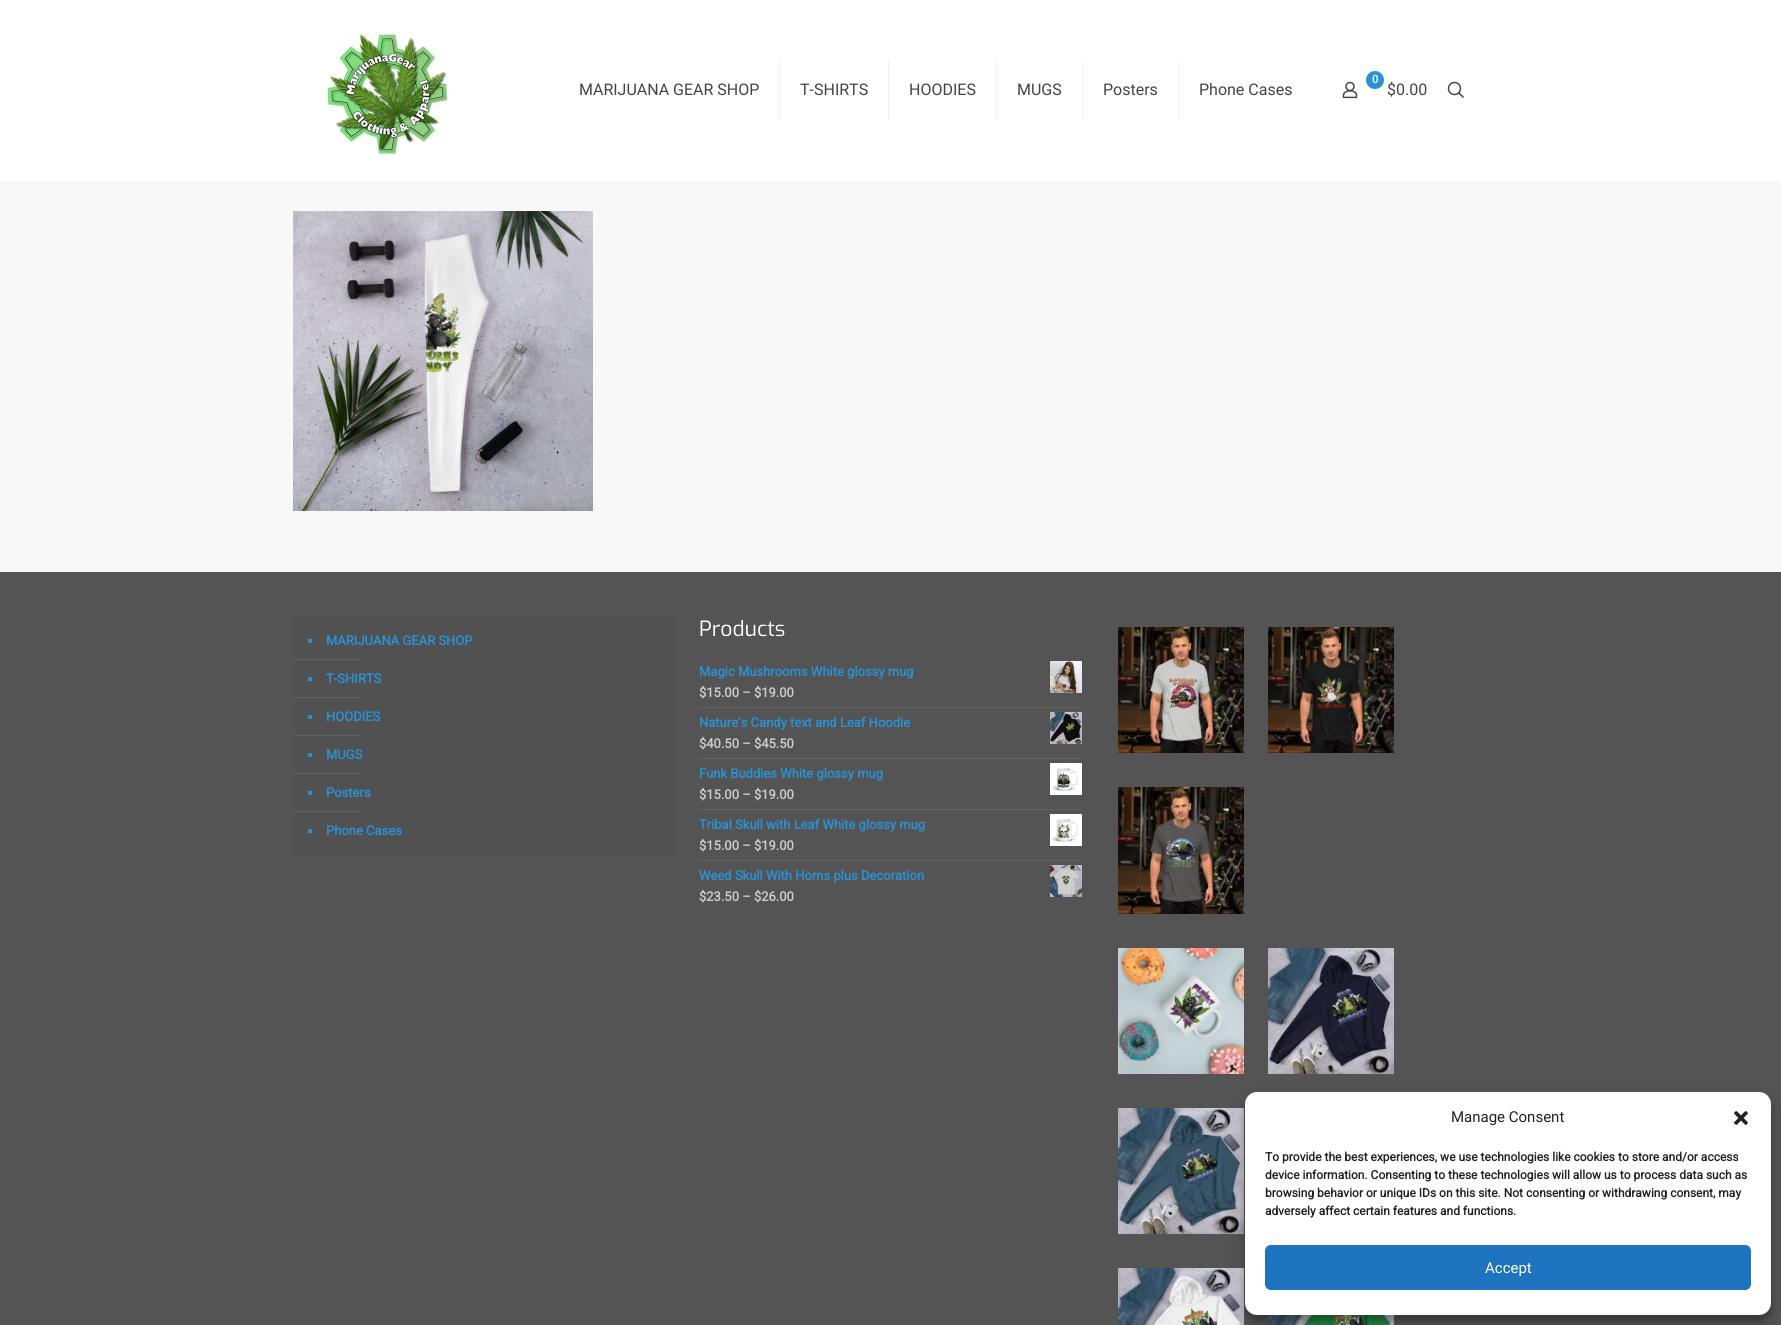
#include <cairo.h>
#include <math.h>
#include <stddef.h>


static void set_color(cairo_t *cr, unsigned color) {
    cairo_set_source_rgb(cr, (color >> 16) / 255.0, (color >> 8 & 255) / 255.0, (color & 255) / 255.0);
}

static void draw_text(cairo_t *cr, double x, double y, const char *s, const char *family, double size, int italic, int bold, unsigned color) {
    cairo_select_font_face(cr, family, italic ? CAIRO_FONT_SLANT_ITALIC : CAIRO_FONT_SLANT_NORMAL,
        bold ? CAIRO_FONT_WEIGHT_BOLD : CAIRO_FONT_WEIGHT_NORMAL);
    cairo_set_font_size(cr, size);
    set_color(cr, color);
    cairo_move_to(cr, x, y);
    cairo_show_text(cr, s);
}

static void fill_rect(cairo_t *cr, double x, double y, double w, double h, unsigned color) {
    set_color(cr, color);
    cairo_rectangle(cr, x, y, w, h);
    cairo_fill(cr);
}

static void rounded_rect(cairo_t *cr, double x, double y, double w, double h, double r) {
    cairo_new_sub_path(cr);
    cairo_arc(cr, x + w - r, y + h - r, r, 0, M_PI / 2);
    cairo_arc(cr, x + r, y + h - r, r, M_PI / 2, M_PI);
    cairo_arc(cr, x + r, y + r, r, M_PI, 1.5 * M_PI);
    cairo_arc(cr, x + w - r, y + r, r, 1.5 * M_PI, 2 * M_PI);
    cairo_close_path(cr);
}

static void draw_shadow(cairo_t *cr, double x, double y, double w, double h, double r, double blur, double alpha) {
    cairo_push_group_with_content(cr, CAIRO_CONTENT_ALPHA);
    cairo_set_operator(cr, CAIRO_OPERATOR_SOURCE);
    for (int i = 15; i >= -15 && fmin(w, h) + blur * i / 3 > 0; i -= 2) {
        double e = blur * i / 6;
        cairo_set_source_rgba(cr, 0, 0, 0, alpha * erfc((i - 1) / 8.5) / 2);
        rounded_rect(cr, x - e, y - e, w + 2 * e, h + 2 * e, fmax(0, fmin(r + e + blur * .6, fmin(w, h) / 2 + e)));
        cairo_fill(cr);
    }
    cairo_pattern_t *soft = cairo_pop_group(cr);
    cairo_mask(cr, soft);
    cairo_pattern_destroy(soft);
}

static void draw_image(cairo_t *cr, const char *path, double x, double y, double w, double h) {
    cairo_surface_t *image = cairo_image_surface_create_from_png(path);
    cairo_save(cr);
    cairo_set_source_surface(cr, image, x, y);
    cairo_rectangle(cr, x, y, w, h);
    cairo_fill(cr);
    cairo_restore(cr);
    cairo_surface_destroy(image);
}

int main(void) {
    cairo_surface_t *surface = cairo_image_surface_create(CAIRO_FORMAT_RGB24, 1781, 1325);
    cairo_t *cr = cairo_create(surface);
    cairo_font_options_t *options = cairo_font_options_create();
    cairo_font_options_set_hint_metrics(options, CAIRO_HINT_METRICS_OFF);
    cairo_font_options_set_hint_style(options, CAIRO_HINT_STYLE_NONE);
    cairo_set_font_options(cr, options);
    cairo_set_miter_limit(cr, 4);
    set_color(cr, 0xF8F8F8);
    cairo_paint(cr);
    fill_rect(cr, 0, 0, 1781, 181, 0xFFFFFF);
    draw_image(cr, "assets/img1.png", 327, 34, 121, 121);
    fill_rect(cr, 779, 60, 1, 60, 0xF2F2F2);
    draw_text(cr, 579, 95, "MARIJUANA GEAR SHOP", "Roboto", 16, 0, 0, 0x444444);
    fill_rect(cr, 888, 60, 1, 60, 0xF2F2F2);
    draw_text(cr, 800, 95, "T-SHIRTS", "Roboto", 16, 0, 0, 0x444444);
    fill_rect(cr, 996, 60, 1, 60, 0xF2F2F2);
    draw_text(cr, 909, 95, "HOODIES", "Roboto", 16, 0, 0, 0x444444);
    fill_rect(cr, 1082, 60, 1, 60, 0xF2F2F2);
    draw_text(cr, 1017, 95, "MUGS", "Roboto", 16, 0, 0, 0x444444);
    fill_rect(cr, 1178, 60, 1, 60, 0xF2F2F2);
    draw_text(cr, 1103, 95, "Posters", "Roboto", 16, 0, 0, 0x444444);
    draw_text(cr, 1199, 95, "Phone Cases", "Roboto", 16, 0, 0, 0x444444);
    draw_image(cr, "assets/img2.png", 1342, 81, 16, 18);
    set_color(cr, 0x2991D6);
    cairo_arc(cr, 1375, 80, 9, 0, 2 * M_PI);
    cairo_fill(cr);
    draw_text(cr, 1372, 83, "0", "Roboto", 11, 0, 1, 0xFFFFFF);
    draw_text(cr, 1387, 95, "$0.00", "Roboto", 16, 0, 0, 0x444444);
    cairo_new_path(cr);
    cairo_arc(cr, 1454.5, 88.5, 6, 0, 2 * M_PI);
    cairo_set_line_width(cr, 1.5);
    cairo_stroke(cr);
    cairo_new_path(cr);
    cairo_move_to(cr, 1458.5, 92.5);
    cairo_line_to(cr, 1463.5, 97.5);
    cairo_stroke(cr);
    draw_image(cr, "assets/img3.png", 293, 211, 300, 300);
    fill_rect(cr, 0, 572, 1781, 753, 0x545454);
    fill_rect(cr, 293, 617, 382, 238, 0x515151);
    fill_rect(cr, 308, 639, 4, 4, 0x2991D6);
    draw_text(cr, 326, 645, "MARIJUANA GEAR SHOP", "Roboto", 13, 0, 1, 0x2991D6);
    fill_rect(cr, 293, 659, 70, 1, 0x5F5F5F);
    fill_rect(cr, 308, 677, 4, 4, 0x2991D6);
    draw_text(cr, 326, 683, "T-SHIRTS", "Roboto", 13, 0, 1, 0x2991D6);
    fill_rect(cr, 293, 697, 70, 1, 0x5F5F5F);
    fill_rect(cr, 308, 715, 4, 4, 0x2991D6);
    draw_text(cr, 326, 721, "HOODIES", "Roboto", 13, 0, 1, 0x2991D6);
    fill_rect(cr, 293, 735, 70, 1, 0x5F5F5F);
    fill_rect(cr, 308, 753, 4, 4, 0x2991D6);
    draw_text(cr, 326, 759, "MUGS", "Roboto", 13, 0, 1, 0x2991D6);
    fill_rect(cr, 293, 773, 70, 1, 0x5F5F5F);
    fill_rect(cr, 308, 791, 4, 4, 0x2991D6);
    draw_text(cr, 326, 797, "Posters", "Roboto", 13, 0, 1, 0x2991D6);
    fill_rect(cr, 293, 811, 70, 1, 0x5F5F5F);
    fill_rect(cr, 308, 829, 4, 4, 0x2991D6);
    draw_text(cr, 326, 835, "Phone Cases", "Roboto", 13, 0, 1, 0x2991D6);
    draw_text(cr, 699, 636, "Products", "Exo", 21, 0, 0, 0xFFFFFF);
    fill_rect(cr, 699, 707, 383, 1, 0x626262);
    draw_text(cr, 699, 676, "Magic Mushrooms White glossy mug", "Roboto", 13, 0, 1, 0x2991D6);
    draw_image(cr, "assets/img4.png", 1050, 661, 32, 32);
    draw_text(cr, 699, 697, "$15.00 – $19.00", "Roboto", 13, 0, 1, 0xCCCCCC);
    fill_rect(cr, 699, 758, 383, 1, 0x626262);
    draw_text(cr, 699, 727, "Nature’s Candy text and Leaf Hoodie", "Roboto", 13, 0, 1, 0x2991D6);
    draw_image(cr, "assets/img5.png", 1050, 712, 32, 32);
    draw_text(cr, 699, 748, "$40.50 – $45.50", "Roboto", 13, 0, 1, 0xCCCCCC);
    fill_rect(cr, 699, 809, 383, 1, 0x626262);
    draw_text(cr, 699, 778, "Funk Buddies White glossy mug", "Roboto", 13, 0, 1, 0x2991D6);
    draw_image(cr, "assets/img6.png", 1050, 763, 32, 32);
    draw_text(cr, 699, 799, "$15.00 – $19.00", "Roboto", 13, 0, 1, 0xCCCCCC);
    fill_rect(cr, 699, 860, 383, 1, 0x626262);
    draw_text(cr, 699, 829, "Tribal Skull with Leaf White glossy mug", "Roboto", 13, 0, 1, 0x2991D6);
    draw_image(cr, "assets/img7.png", 1050, 814, 32, 32);
    draw_text(cr, 699, 850, "$15.00 – $19.00", "Roboto", 13, 0, 1, 0xCCCCCC);
    draw_text(cr, 699, 880, "Weed Skull With Horns plus Decoration", "Roboto", 13, 0, 1, 0x2991D6);
    draw_image(cr, "assets/img8.png", 1050, 865, 32, 32);
    draw_text(cr, 699, 901, "$23.50 – $26.00", "Roboto", 13, 0, 1, 0xCCCCCC);
    draw_image(cr, "assets/img9.png", 1118, 627, 126, 126);
    draw_image(cr, "assets/img10.png", 1268, 627, 126, 126);
    draw_image(cr, "assets/img11.png", 1118, 787, 126, 127);
    draw_image(cr, "assets/img12.png", 1118, 948, 126, 126);
    draw_image(cr, "assets/img13.png", 1268, 948, 126, 126);
    draw_image(cr, "assets/img14.png", 1118, 1108, 126, 126);
    draw_image(cr, "assets/img15.png", 1118, 1268, 126, 57);
    draw_image(cr, "assets/img16.png", 1268, 1315, 126, 10);
    set_color(cr, 0x000000);
    draw_shadow(cr, 1245, 1098, 526, 223, 12, 3, 0.23);
    draw_shadow(cr, 1245, 1102, 526, 223, 12, 10, 0.19);
    set_color(cr, 0xFFFFFF);
    rounded_rect(cr, 1245, 1092, 526, 223, 12);
    cairo_fill(cr);
    draw_text(cr, 1451, 1122, "Manage Consent", "Roboto", 15, 0, 0, 0x222222);
    draw_image(cr, "assets/img17.png", 1734, 1111, 14, 14);
    draw_text(cr, 1265, 1161, "To provide the best experiences, we use technologies like cookies to store and/or access", "Roboto", 12, 0, 1, 0x222222);
    draw_text(cr, 1265, 1179, "device information. Consenting to these technologies will allow us to process data such as", "Roboto", 12, 0, 1, 0x222222);
    draw_text(cr, 1265, 1197, "browsing behavior or unique IDs on this site. Not consenting or withdrawing consent, may", "Roboto", 12, 0, 1, 0x222222);
    draw_text(cr, 1265, 1215, "adversely affect certain features and functions.", "Roboto", 12, 0, 1, 0x222222);
    set_color(cr, 0x1E73BE);
    rounded_rect(cr, 1265.5, 1245.5, 485, 44, 5.5);
    cairo_fill_preserve(cr);
    cairo_set_line_width(cr, 1);
    cairo_stroke(cr);
    draw_text(cr, 1485, 1273, "Accept", "Roboto", 15, 0, 0, 0xFFFFFF);
    cairo_surface_write_to_png(surface, "output.png");
    cairo_font_options_destroy(options);
    cairo_destroy(cr);
    cairo_surface_destroy(surface);
    return 0;
}
